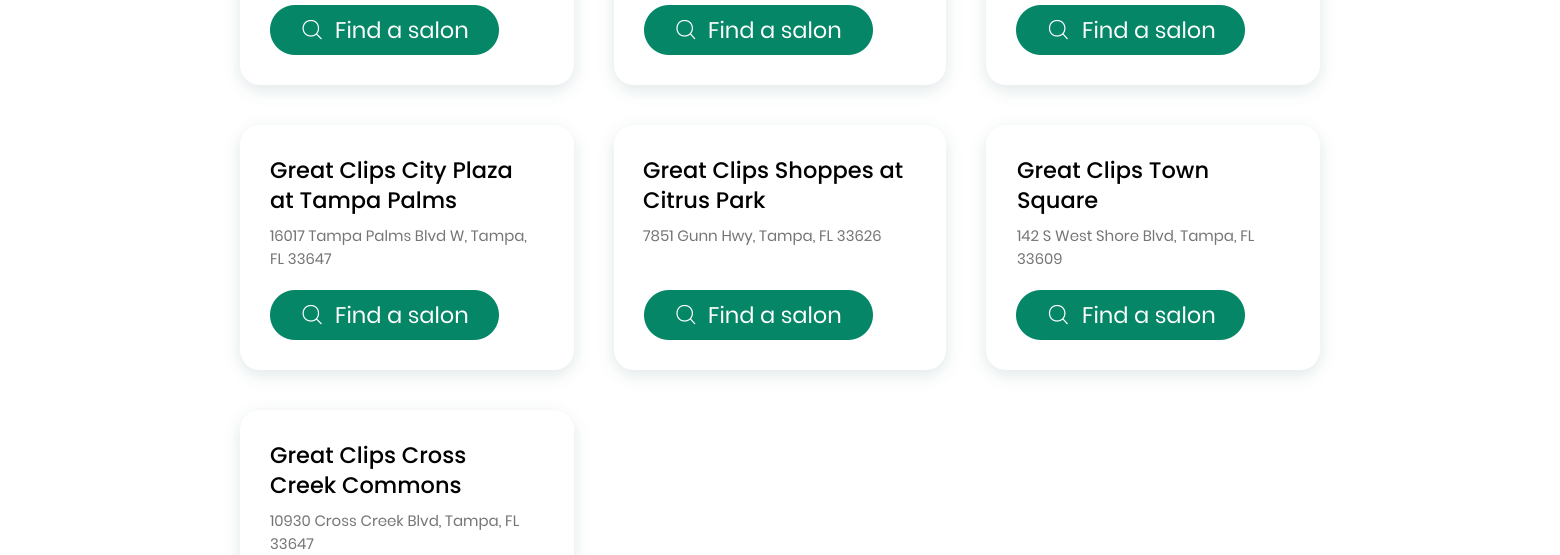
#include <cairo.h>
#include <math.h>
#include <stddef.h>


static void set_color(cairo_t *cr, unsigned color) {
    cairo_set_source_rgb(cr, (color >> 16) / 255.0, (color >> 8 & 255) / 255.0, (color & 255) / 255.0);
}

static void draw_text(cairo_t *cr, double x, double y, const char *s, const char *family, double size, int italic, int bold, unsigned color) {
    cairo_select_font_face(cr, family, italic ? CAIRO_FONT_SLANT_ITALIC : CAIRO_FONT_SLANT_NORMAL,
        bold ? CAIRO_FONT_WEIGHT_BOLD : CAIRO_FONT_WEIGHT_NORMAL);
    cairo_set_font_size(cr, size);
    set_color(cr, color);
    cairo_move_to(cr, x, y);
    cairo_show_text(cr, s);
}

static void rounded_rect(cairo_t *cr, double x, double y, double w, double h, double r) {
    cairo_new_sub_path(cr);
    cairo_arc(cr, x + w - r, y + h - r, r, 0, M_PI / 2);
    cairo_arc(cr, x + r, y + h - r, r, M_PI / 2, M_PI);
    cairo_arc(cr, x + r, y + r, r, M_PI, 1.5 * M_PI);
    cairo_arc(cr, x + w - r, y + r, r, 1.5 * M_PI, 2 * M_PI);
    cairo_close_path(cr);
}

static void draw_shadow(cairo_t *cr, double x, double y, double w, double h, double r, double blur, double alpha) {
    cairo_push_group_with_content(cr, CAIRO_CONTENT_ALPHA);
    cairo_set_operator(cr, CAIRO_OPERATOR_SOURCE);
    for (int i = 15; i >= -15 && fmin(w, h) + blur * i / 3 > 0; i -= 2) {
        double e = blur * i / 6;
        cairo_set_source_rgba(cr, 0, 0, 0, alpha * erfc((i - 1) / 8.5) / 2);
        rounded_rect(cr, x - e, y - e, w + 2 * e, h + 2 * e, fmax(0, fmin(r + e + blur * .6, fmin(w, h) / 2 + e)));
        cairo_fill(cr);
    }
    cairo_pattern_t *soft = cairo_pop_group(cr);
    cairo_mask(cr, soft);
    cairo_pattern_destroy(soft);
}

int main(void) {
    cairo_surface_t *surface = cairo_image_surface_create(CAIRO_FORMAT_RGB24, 1560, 555);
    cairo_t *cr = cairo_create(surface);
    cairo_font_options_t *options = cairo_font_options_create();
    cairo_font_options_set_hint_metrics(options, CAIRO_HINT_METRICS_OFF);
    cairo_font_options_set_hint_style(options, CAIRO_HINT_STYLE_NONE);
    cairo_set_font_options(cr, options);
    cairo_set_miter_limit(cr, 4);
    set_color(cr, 0xFFFFFF);
    cairo_paint(cr);
    set_color(cr, 0x073B3A);
    draw_shadow(cr, 240, -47, 334, 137, 20, 9, 0.12);
    set_color(cr, 0xFFFFFF);
    rounded_rect(cr, 240, -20, 334, 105, 20);
    cairo_fill(cr);
    set_color(cr, 0x048667);
    rounded_rect(cr, 270, 5, 229, 50, 25);
    cairo_fill(cr);
    cairo_new_path(cr);
    cairo_move_to(cr, 316.5, 34);
    cairo_line_to(cr, 321.5, 39);
    cairo_move_to(cr, 311, 36);
    cairo_curve_to(cr, 321, 36, 321, 20.5, 311, 20.5);
    cairo_curve_to(cr, 300.5, 20.5, 300.5, 36, 311, 36);
    cairo_close_path(cr);
    set_color(cr, 0xFFFFFF);
    cairo_set_line_width(cr, 1.2);
    cairo_stroke(cr);
    draw_text(cr, 335, 38, "Find a salon", "Poppins", 22.5, 0, 0, 0xFFFFFF);
    set_color(cr, 0x073B3A);
    draw_shadow(cr, 614, -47, 332, 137, 20, 9, 0.12);
    set_color(cr, 0xFFFFFF);
    rounded_rect(cr, 614, -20, 332, 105, 20);
    cairo_fill(cr);
    set_color(cr, 0x048667);
    rounded_rect(cr, 644, 5, 229, 50, 25);
    cairo_fill(cr);
    cairo_new_path(cr);
    cairo_move_to(cr, 690.5, 34);
    cairo_line_to(cr, 695, 39);
    cairo_move_to(cr, 684.5, 36);
    cairo_curve_to(cr, 695, 36, 695, 20.5, 684.5, 20.5);
    cairo_curve_to(cr, 674.5, 20.5, 674.5, 36, 684.5, 36);
    cairo_close_path(cr);
    set_color(cr, 0xFFFFFF);
    cairo_stroke(cr);
    draw_text(cr, 708, 38, "Find a salon", "Poppins", 22.5, 0, 0, 0xFFFFFF);
    set_color(cr, 0x073B3A);
    draw_shadow(cr, 986, -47, 334, 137, 20, 9, 0.12);
    set_color(cr, 0xFFFFFF);
    rounded_rect(cr, 986, -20, 334, 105, 20);
    cairo_fill(cr);
    set_color(cr, 0x048667);
    rounded_rect(cr, 1016, 5, 229, 50, 25);
    cairo_fill(cr);
    cairo_new_path(cr);
    cairo_move_to(cr, 1063, 34);
    cairo_line_to(cr, 1067.5, 39);
    cairo_move_to(cr, 1057, 36);
    cairo_curve_to(cr, 1067.5, 36, 1067.5, 20.5, 1057, 20.5);
    cairo_curve_to(cr, 1047, 20.5, 1047, 36, 1057, 36);
    cairo_close_path(cr);
    set_color(cr, 0xFFFFFF);
    cairo_stroke(cr);
    draw_text(cr, 1082, 38, "Find a salon", "Poppins", 22.5, 0, 0, 0xFFFFFF);
    set_color(cr, 0x073B3A);
    draw_shadow(cr, 240, 130, 334, 245, 20, 9, 0.12);
    set_color(cr, 0xFFFFFF);
    rounded_rect(cr, 240, 125, 334, 245, 20);
    cairo_fill(cr);
    draw_text(cr, 270, 178, "Great Clips City Plaza", "Poppins Medium", 22.5, 0, 0, 0x000000);
    draw_text(cr, 270, 208, "at Tampa Palms", "Poppins Medium", 22.5, 0, 0, 0x000000);
    draw_text(cr, 270, 241, "16017 Tampa Palms Blvd W, Tampa,", "Poppins", 15, 0, 0, 0x757575);
    draw_text(cr, 270, 264, "FL 33647", "Poppins", 15, 0, 0, 0x757575);
    set_color(cr, 0x048667);
    rounded_rect(cr, 270, 290, 229, 50, 25);
    cairo_fill(cr);
    cairo_new_path(cr);
    cairo_move_to(cr, 316.5, 319);
    cairo_line_to(cr, 321.5, 324);
    cairo_move_to(cr, 311, 321);
    cairo_curve_to(cr, 321, 321, 321, 305.5, 311, 305.5);
    cairo_curve_to(cr, 300.5, 305.5, 300.5, 321, 311, 321);
    cairo_close_path(cr);
    set_color(cr, 0xFFFFFF);
    cairo_stroke(cr);
    draw_text(cr, 335, 323, "Find a salon", "Poppins", 22.5, 0, 0, 0xFFFFFF);
    set_color(cr, 0x073B3A);
    draw_shadow(cr, 614, 130, 332, 245, 20, 9, 0.12);
    set_color(cr, 0xFFFFFF);
    rounded_rect(cr, 614, 125, 332, 245, 20);
    cairo_fill(cr);
    draw_text(cr, 643, 178, "Great Clips Shoppes at", "Poppins Medium", 22.5, 0, 0, 0x000000);
    draw_text(cr, 643, 208, "Citrus Park", "Poppins Medium", 22.5, 0, 0, 0x000000);
    draw_text(cr, 643, 241, "7851 Gunn Hwy, Tampa, FL 33626", "Poppins", 15, 0, 0, 0x757575);
    set_color(cr, 0x048667);
    rounded_rect(cr, 644, 290, 229, 50, 25);
    cairo_fill(cr);
    cairo_new_path(cr);
    cairo_move_to(cr, 690.5, 319);
    cairo_line_to(cr, 695, 324);
    cairo_move_to(cr, 684.5, 321);
    cairo_curve_to(cr, 695, 321, 695, 305.5, 684.5, 305.5);
    cairo_curve_to(cr, 674.5, 305.5, 674.5, 321, 684.5, 321);
    cairo_close_path(cr);
    set_color(cr, 0xFFFFFF);
    cairo_stroke(cr);
    draw_text(cr, 708, 323, "Find a salon", "Poppins", 22.5, 0, 0, 0xFFFFFF);
    set_color(cr, 0x073B3A);
    draw_shadow(cr, 986, 130, 334, 245, 20, 9, 0.12);
    set_color(cr, 0xFFFFFF);
    rounded_rect(cr, 986, 125, 334, 245, 20);
    cairo_fill(cr);
    draw_text(cr, 1017, 178, "Great Clips Town", "Poppins Medium", 22.5, 0, 0, 0x000000);
    draw_text(cr, 1017, 208, "Square", "Poppins Medium", 22.5, 0, 0, 0x000000);
    draw_text(cr, 1017, 241, "142 S West Shore Blvd, Tampa, FL", "Poppins", 15, 0, 0, 0x757575);
    draw_text(cr, 1017, 264, "33609", "Poppins", 15, 0, 0, 0x757575);
    set_color(cr, 0x048667);
    rounded_rect(cr, 1016, 290, 229, 50, 25);
    cairo_fill(cr);
    cairo_new_path(cr);
    cairo_move_to(cr, 1063, 319);
    cairo_line_to(cr, 1067.5, 324);
    cairo_move_to(cr, 1057, 321);
    cairo_curve_to(cr, 1067.5, 321, 1067.5, 305.5, 1057, 305.5);
    cairo_curve_to(cr, 1047, 305.5, 1047, 321, 1057, 321);
    cairo_close_path(cr);
    set_color(cr, 0xFFFFFF);
    cairo_stroke(cr);
    draw_text(cr, 1082, 323, "Find a salon", "Poppins", 22.5, 0, 0, 0xFFFFFF);
    set_color(cr, 0x073B3A);
    draw_shadow(cr, 240, 415, 334, 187, 20, 9, 0.12);
    set_color(cr, 0xFFFFFF);
    rounded_rect(cr, 240, 410, 334, 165, 20);
    cairo_fill(cr);
    draw_text(cr, 270, 463, "Great Clips Cross", "Poppins Medium", 22.5, 0, 0, 0x000000);
    draw_text(cr, 270, 493, "Creek Commons", "Poppins Medium", 22.5, 0, 0, 0x000000);
    draw_text(cr, 270, 526, "10930 Cross Creek Blvd, Tampa, FL", "Poppins", 15, 0, 0, 0x757575);
    draw_text(cr, 270, 549, "33647", "Poppins", 15, 0, 0, 0x757575);
    cairo_surface_write_to_png(surface, "output.png");
    cairo_font_options_destroy(options);
    cairo_destroy(cr);
    cairo_surface_destroy(surface);
    return 0;
}
